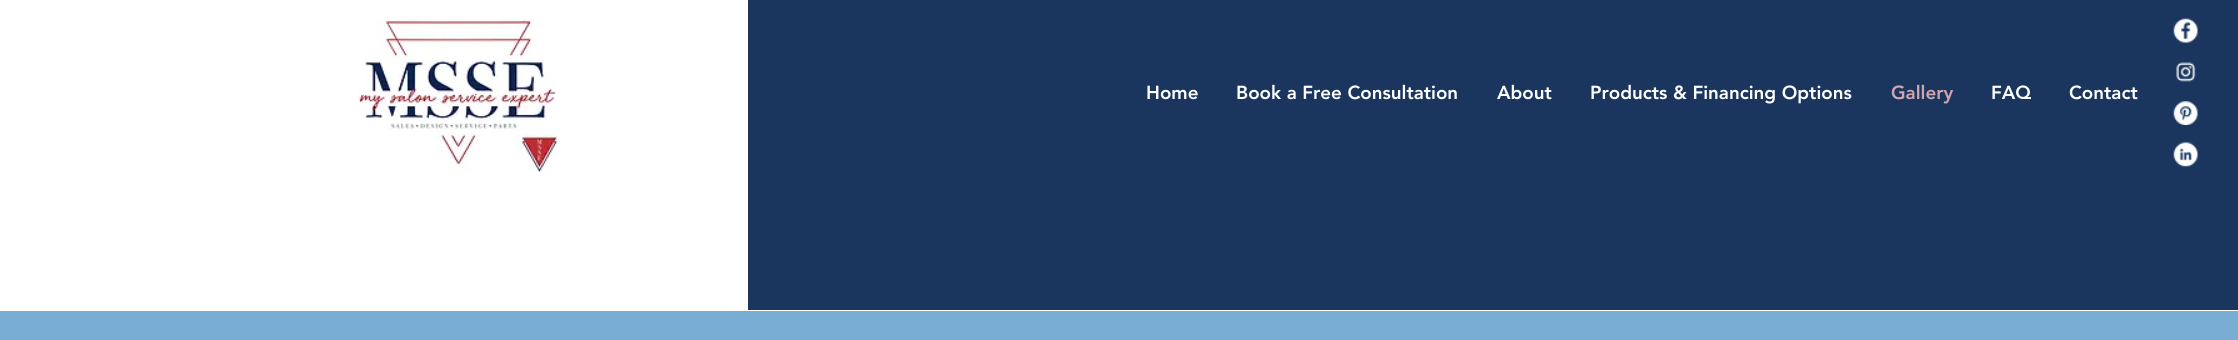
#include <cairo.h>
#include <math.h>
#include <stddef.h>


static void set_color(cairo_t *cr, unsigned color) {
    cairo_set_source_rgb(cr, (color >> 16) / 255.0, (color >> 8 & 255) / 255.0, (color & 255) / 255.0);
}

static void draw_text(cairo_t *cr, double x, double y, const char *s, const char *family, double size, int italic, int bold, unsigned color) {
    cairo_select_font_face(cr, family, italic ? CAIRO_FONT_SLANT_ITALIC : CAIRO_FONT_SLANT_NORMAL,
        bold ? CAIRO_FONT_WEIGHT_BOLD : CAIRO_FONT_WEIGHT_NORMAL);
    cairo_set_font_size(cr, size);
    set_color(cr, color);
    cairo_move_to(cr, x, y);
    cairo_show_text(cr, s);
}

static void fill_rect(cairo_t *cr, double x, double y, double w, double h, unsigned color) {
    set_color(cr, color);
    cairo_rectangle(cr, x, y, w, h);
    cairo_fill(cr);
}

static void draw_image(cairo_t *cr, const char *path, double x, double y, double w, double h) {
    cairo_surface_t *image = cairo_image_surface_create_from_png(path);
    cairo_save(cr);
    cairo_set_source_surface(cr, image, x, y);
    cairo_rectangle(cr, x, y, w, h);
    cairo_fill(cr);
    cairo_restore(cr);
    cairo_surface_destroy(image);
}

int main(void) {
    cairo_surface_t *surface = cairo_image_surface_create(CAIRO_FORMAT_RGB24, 2238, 340);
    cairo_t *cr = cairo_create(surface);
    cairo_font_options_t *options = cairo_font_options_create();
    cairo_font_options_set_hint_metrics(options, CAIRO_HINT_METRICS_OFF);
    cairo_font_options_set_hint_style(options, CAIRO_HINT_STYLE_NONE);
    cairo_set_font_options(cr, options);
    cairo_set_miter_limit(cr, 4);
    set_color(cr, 0xFFFFFF);
    cairo_paint(cr);
    draw_image(cr, "assets/img1.png", 358, 19, 200, 155);
    fill_rect(cr, 748, 0, 1490, 310, 0x1A365E);
    draw_text(cr, 1146, 99, "Home", "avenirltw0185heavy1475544 Black", 18.75, 0, 0, 0xFFFFFF);
    draw_text(cr, 1236, 99, "Book a Free Consultation", "avenirltw0185heavy1475544 Black", 18.75, 0, 0, 0xFFFFFF);
    draw_text(cr, 1497, 99, "About", "avenirltw0185heavy1475544 Black", 18.75, 0, 0, 0xFFFFFF);
    draw_text(cr, 1590, 99, "Products & Financing Options", "avenirltw0185heavy1475544 Black", 18.75, 0, 0, 0xFFFFFF);
    draw_text(cr, 1891, 99, "Gallery", "avenirltw0185heavy1475544 Black", 18.75, 0, 0, 0xD1A5AF);
    draw_text(cr, 1991, 99, "FAQ", "avenirltw0185heavy1475544 Black", 18.75, 0, 0, 0xFFFFFF);
    draw_text(cr, 2069, 99, "Contact", "avenirltw0185heavy1475544 Black", 18.75, 0, 0, 0xFFFFFF);
    draw_image(cr, "assets/img2.png", 2173, 18, 25, 25);
    draw_image(cr, "assets/img3.png", 2176, 62, 20, 20);
    draw_image(cr, "assets/img4.png", 2173, 101, 25, 24);
    draw_image(cr, "assets/img5.png", 2173, 142, 25, 25);
    fill_rect(cr, 0, 311, 2238, 29, 0x79ADD4);
    cairo_surface_write_to_png(surface, "output.png");
    cairo_font_options_destroy(options);
    cairo_destroy(cr);
    cairo_surface_destroy(surface);
    return 0;
}
